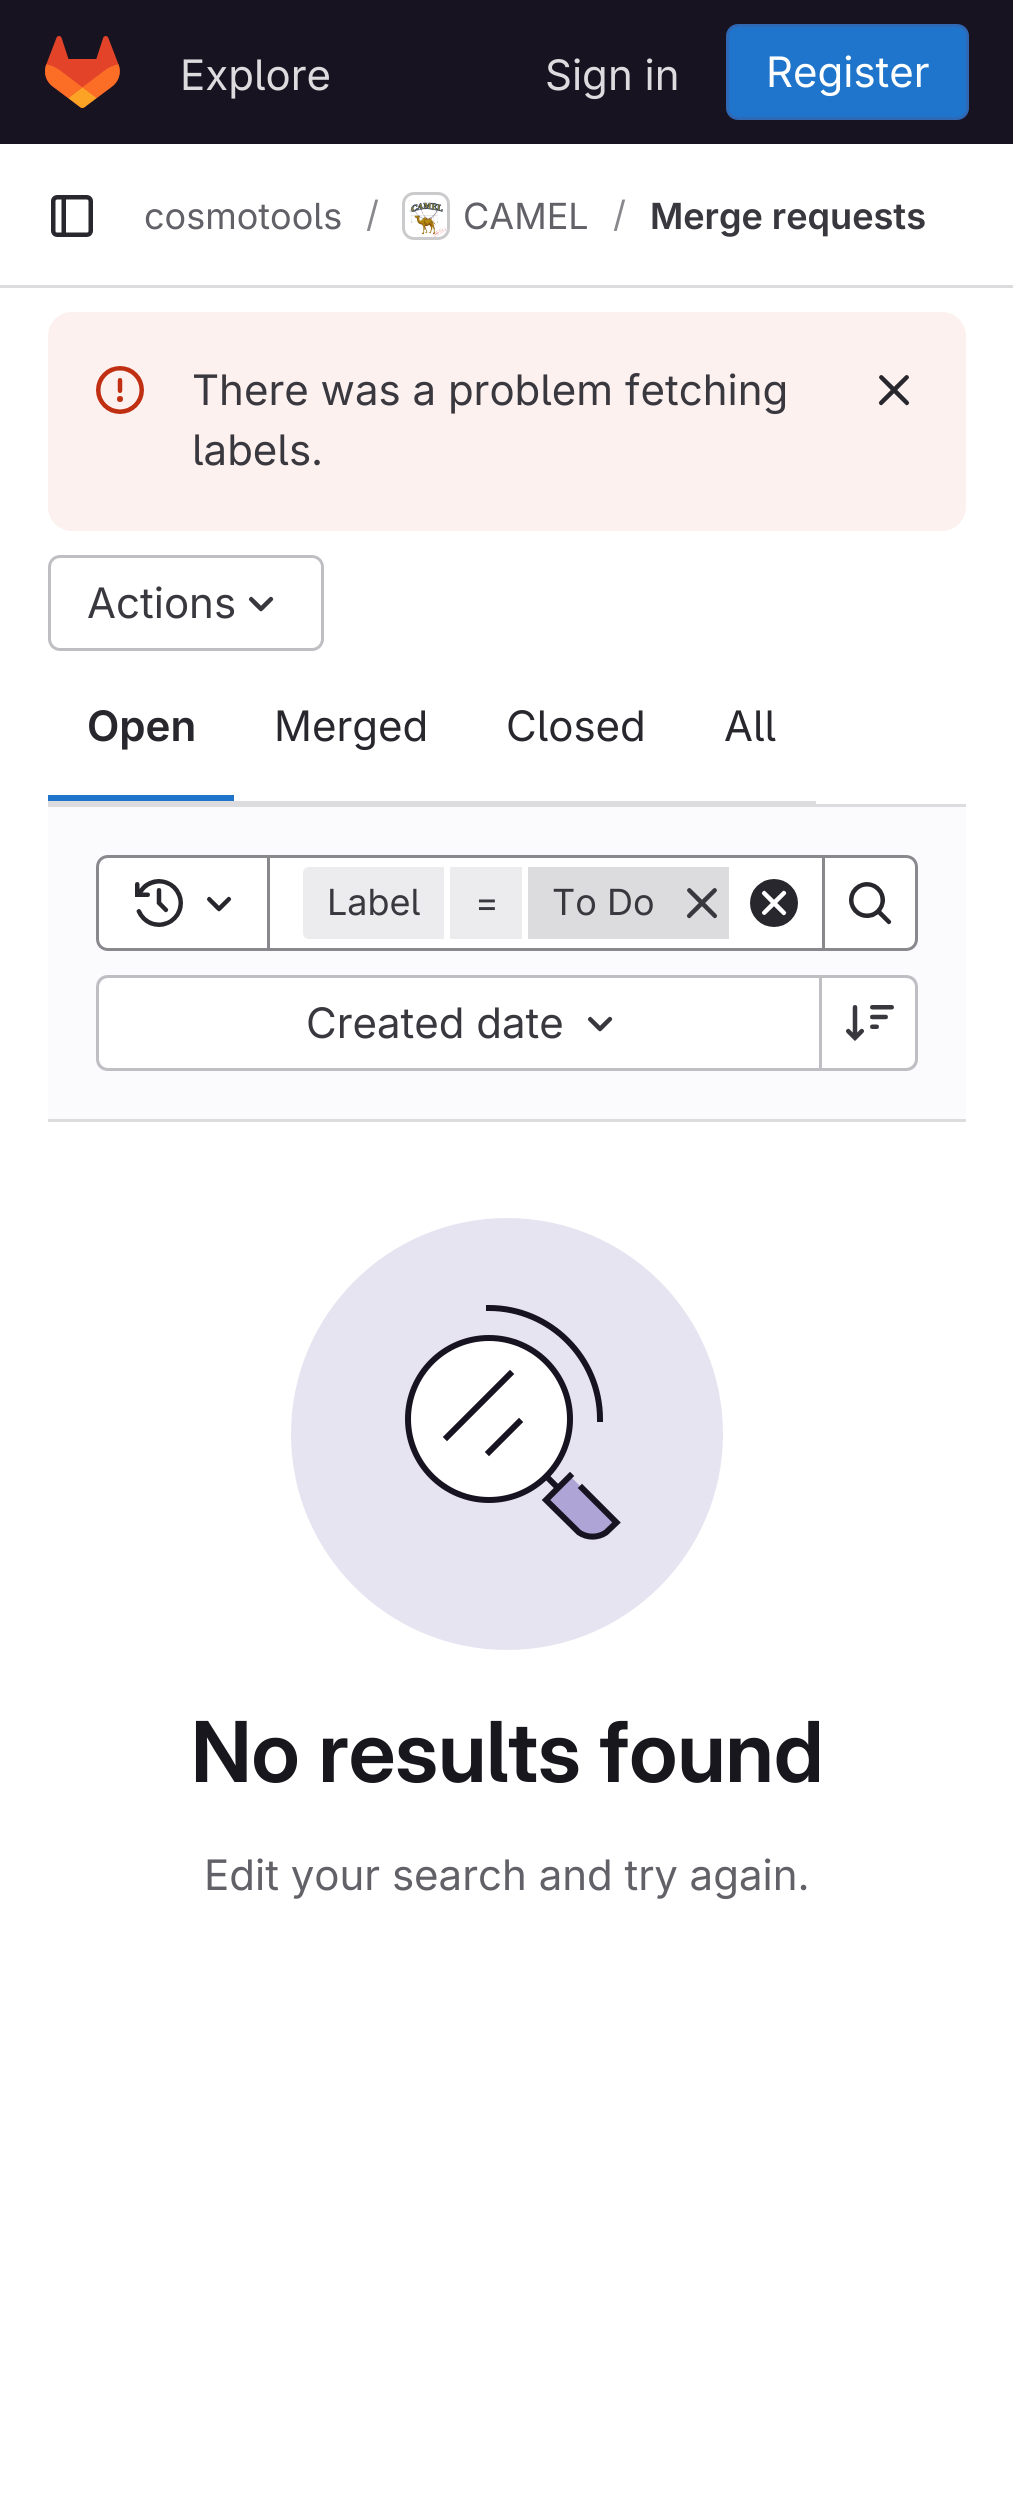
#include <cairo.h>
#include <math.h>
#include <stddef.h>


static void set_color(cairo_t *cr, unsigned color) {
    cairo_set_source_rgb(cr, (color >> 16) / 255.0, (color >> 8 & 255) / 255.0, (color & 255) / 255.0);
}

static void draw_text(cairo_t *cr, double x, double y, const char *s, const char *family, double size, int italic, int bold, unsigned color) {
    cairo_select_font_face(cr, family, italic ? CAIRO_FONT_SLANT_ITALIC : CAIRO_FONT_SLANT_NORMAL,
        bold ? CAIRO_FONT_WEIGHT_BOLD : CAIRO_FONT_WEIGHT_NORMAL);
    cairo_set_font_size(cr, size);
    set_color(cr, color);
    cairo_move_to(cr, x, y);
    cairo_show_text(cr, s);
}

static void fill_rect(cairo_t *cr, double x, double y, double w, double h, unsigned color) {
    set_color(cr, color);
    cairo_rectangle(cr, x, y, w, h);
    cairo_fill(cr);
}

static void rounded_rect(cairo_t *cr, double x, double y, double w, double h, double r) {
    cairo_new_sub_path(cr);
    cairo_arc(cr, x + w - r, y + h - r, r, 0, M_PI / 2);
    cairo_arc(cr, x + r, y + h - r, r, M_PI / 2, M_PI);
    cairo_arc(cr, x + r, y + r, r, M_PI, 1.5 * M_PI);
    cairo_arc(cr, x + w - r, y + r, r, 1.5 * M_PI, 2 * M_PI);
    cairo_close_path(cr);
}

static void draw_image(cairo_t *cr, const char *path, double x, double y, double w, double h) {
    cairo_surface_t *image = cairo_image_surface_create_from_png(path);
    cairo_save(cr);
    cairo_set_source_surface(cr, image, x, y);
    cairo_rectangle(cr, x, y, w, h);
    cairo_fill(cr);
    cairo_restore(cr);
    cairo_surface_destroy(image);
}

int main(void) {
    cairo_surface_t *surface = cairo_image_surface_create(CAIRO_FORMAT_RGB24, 1013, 2497);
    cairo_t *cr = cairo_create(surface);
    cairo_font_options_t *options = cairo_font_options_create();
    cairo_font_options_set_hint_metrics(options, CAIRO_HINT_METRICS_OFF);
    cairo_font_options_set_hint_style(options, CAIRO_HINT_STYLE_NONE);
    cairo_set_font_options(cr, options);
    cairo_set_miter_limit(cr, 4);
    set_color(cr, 0xFFFFFF);
    cairo_paint(cr);
    fill_rect(cr, 0, 0, 1013, 144, 0x171321);
    draw_image(cr, "assets/img1.png", 45, 36, 75, 72);
    draw_text(cr, 180, 90, "Explore", "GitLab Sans", 42, 0, 0, 0xDCDCDE);
    draw_text(cr, 545, 90, "Sign in", "GitLab Sans", 42, 0, 0, 0xDCDCDE);
    set_color(cr, 0x1F75CB);
    rounded_rect(cr, 727.5, 25.5, 240, 93, 10.5);
    cairo_fill_preserve(cr);
    set_color(cr, 0x2F68B4);
    cairo_set_line_width(cr, 3);
    cairo_stroke(cr);
    draw_text(cr, 766, 87, "Register", "GitLab Sans", 42, 0, 0, 0xFFFFFF);
    fill_rect(cr, 0, 285, 1013, 3, 0xDCDCDE);
    draw_image(cr, "assets/img2.png", 51, 195, 42, 42);
    draw_text(cr, 144, 229, "cosmotools", "GitLab Sans", 36, 0, 0, 0x626168);
    draw_text(cr, 366, 227, "/", "GitLab Sans", 36, 0, 0, 0x89888D);
    rounded_rect(cr, 403.5, 193.5, 45, 45, 10.5);
    set_color(cr, 0xDCDCDE);
    cairo_stroke(cr);
    draw_image(cr, "assets/img3.png", 409, 202, 37, 35);
    rounded_rect(cr, 403.5, 193.5, 45, 45, 10.5);
    cairo_set_source_rgba(cr, 0.02, 0.02, 0.024, 0.08);
    cairo_stroke(cr);
    draw_text(cr, 463, 229, "CAMEL", "GitLab Sans", 36, 0, 0, 0x626168);
    draw_text(cr, 613, 227, "/", "GitLab Sans", 36, 0, 0, 0x89888D);
    draw_text(cr, 650, 229, "Merge requests", "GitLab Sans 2 SemiBold", 36, 0, 0, 0x3A383F);
    set_color(cr, 0xFCF1EF);
    rounded_rect(cr, 48, 312, 918, 219, 24);
    cairo_fill(cr);
    draw_image(cr, "assets/img4.png", 96, 366, 48, 48);
    draw_text(cr, 192, 405, "There was a problem fetching", "GitLab Sans", 42, 0, 0, 0x3A383F);
    draw_text(cr, 192, 465, "labels.", "GitLab Sans", 42, 0, 0, 0x3A383F);
    draw_image(cr, "assets/img5.png", 878, 375, 32, 31);
    fill_rect(cr, 48, 804, 918, 3, 0xDCDCDE);
    rounded_rect(cr, 49.5, 556.5, 273, 93, 10.5);
    set_color(cr, 0xBFBFC3);
    cairo_stroke(cr);
    draw_text(cr, 87, 618, "Actions", "GitLab Sans", 42, 0, 0, 0x3A383F);
    draw_image(cr, "assets/img6.png", 248, 596, 26, 16);
    fill_rect(cr, 48, 801, 768, 3, 0xDCDCDE);
    draw_text(cr, 87, 741, "Open", "GitLab Sans 2 SemiBold", 42, 0, 0, 0x28272D);
    fill_rect(cr, 48, 795, 186, 6, 0x1F75CB);
    draw_text(cr, 274, 741, "Merged", "GitLab Sans", 42, 0, 0, 0x28272D);
    draw_text(cr, 506, 741, "Closed", "GitLab Sans", 42, 0, 0, 0x28272D);
    draw_text(cr, 724, 741, "All", "GitLab Sans", 42, 0, 0, 0x28272D);
    fill_rect(cr, 48, 807, 918, 312, 0xFBFAFD);
    fill_rect(cr, 48, 1119, 918, 3, 0xDCDCDE);
    set_color(cr, 0xFFFFFF);
    cairo_rectangle(cr, 268.5, 856.5, 555, 93);
    cairo_fill_preserve(cr);
    set_color(cr, 0x89888D);
    cairo_stroke(cr);
    set_color(cr, 0xFFFFFF);
    cairo_new_path(cr);
    cairo_move_to(cr, 108, 856.5);
    cairo_line_to(cr, 268.5, 856.5);
    cairo_line_to(cr, 268.5, 949.5);
    cairo_line_to(cr, 108, 949.5);
    cairo_curve_to(cr, 102, 949.5, 97.5, 945, 97.5, 939);
    cairo_line_to(cr, 97.5, 867);
    cairo_curve_to(cr, 97.5, 861, 102, 856.5, 108, 856.5);
    cairo_close_path(cr);
    cairo_fill_preserve(cr);
    set_color(cr, 0x89888D);
    cairo_stroke(cr);
    draw_image(cr, "assets/img7.png", 135, 879, 48, 48);
    draw_image(cr, "assets/img8.png", 206, 896, 26, 16);
    set_color(cr, 0xECECEF);
    cairo_new_path(cr);
    cairo_move_to(cr, 309, 867);
    cairo_line_to(cr, 444, 867);
    cairo_line_to(cr, 444, 939);
    cairo_line_to(cr, 309, 939);
    cairo_curve_to(cr, 305.5, 939, 303, 936.5, 303, 933);
    cairo_line_to(cr, 303, 873);
    cairo_curve_to(cr, 303, 869.5, 305.5, 867, 309, 867);
    cairo_close_path(cr);
    cairo_fill(cr);
    draw_text(cr, 327, 915, "Label", "GitLab Sans", 36, 0, 0, 0x3A383F);
    fill_rect(cr, 450, 867, 72, 72, 0xECECEF);
    draw_text(cr, 475, 915, "=", "GitLab Sans", 36, 0, 0, 0x3A383F);
    fill_rect(cr, 528, 867, 201, 72, 0xDCDCDE);
    draw_text(cr, 552, 915, "To Do", "GitLab Sans", 36, 0, 0, 0x3A383F);
    draw_image(cr, "assets/img9.png", 686, 888, 32, 31);
    draw_image(cr, "assets/img10.png", 750, 879, 48, 48);
    set_color(cr, 0xFFFFFF);
    cairo_new_path(cr);
    cairo_move_to(cr, 823.5, 856.5);
    cairo_line_to(cr, 906, 856.5);
    cairo_curve_to(cr, 912, 856.5, 916.5, 861, 916.5, 867);
    cairo_line_to(cr, 916.5, 939);
    cairo_curve_to(cr, 916.5, 945, 912, 949.5, 906, 949.5);
    cairo_line_to(cr, 823.5, 949.5);
    cairo_close_path(cr);
    cairo_fill_preserve(cr);
    set_color(cr, 0x89888D);
    cairo_stroke(cr);
    draw_image(cr, "assets/img11.png", 849, 882, 43, 43);
    set_color(cr, 0xFFFFFF);
    cairo_new_path(cr);
    cairo_move_to(cr, 108, 978);
    cairo_line_to(cr, 819, 978);
    cairo_line_to(cr, 819, 1068);
    cairo_line_to(cr, 108, 1068);
    cairo_curve_to(cr, 103, 1068, 99, 1064, 99, 1059);
    cairo_line_to(cr, 99, 987);
    cairo_curve_to(cr, 99, 982, 103, 978, 108, 978);
    cairo_close_path(cr);
    cairo_fill(cr);
    set_color(cr, 0xBFBFC3);
    cairo_set_fill_rule(cr, CAIRO_FILL_RULE_EVEN_ODD);
    cairo_new_path(cr);
    cairo_move_to(cr, 108, 975);
    cairo_line_to(cr, 819, 975);
    cairo_line_to(cr, 819, 1071);
    cairo_line_to(cr, 108, 1071);
    cairo_curve_to(cr, 101, 1071, 96, 1066, 96, 1059);
    cairo_line_to(cr, 96, 987);
    cairo_curve_to(cr, 96, 980, 101, 975, 108, 975);
    cairo_close_path(cr);
    cairo_move_to(cr, 108, 978);
    cairo_line_to(cr, 819, 978);
    cairo_line_to(cr, 819, 1068);
    cairo_line_to(cr, 108, 1068);
    cairo_curve_to(cr, 103, 1068, 99, 1064, 99, 1059);
    cairo_line_to(cr, 99, 987);
    cairo_curve_to(cr, 99, 982, 103, 978, 108, 978);
    cairo_close_path(cr);
    cairo_fill(cr);
    draw_text(cr, 306, 1038, "Created date", "GitLab Sans", 42, 0, 0, 0x3A383F);
    draw_image(cr, "assets/img12.png", 587, 1016, 26, 16);
    set_color(cr, 0xFFFFFF);
    cairo_new_path(cr);
    cairo_move_to(cr, 822, 978);
    cairo_line_to(cr, 906, 978);
    cairo_curve_to(cr, 911, 978, 915, 982, 915, 987);
    cairo_line_to(cr, 915, 1059);
    cairo_curve_to(cr, 915, 1064, 911, 1068, 906, 1068);
    cairo_line_to(cr, 822, 1068);
    cairo_close_path(cr);
    cairo_fill(cr);
    set_color(cr, 0xBFBFC3);
    cairo_new_path(cr);
    cairo_move_to(cr, 822, 975);
    cairo_line_to(cr, 906, 975);
    cairo_curve_to(cr, 913, 975, 918, 980, 918, 987);
    cairo_line_to(cr, 918, 1059);
    cairo_curve_to(cr, 918, 1066, 913, 1071, 906, 1071);
    cairo_line_to(cr, 822, 1071);
    cairo_close_path(cr);
    cairo_move_to(cr, 822, 978);
    cairo_line_to(cr, 906, 978);
    cairo_curve_to(cr, 911, 978, 915, 982, 915, 987);
    cairo_line_to(cr, 915, 1059);
    cairo_curve_to(cr, 915, 1064, 911, 1068, 906, 1068);
    cairo_line_to(cr, 822, 1068);
    cairo_close_path(cr);
    cairo_fill(cr);
    fill_rect(cr, 819, 975, 3, 96, 0xBFBFC3);
    draw_image(cr, "assets/img13.png", 846, 1005, 48, 36);
    set_color(cr, 0xE7E4F2);
    cairo_arc(cr, 507, 1434, 216, 0, 2 * M_PI);
    cairo_fill(cr);
    set_color(cr, 0xAEA5D6);
    cairo_set_fill_rule(cr, CAIRO_FILL_RULE_WINDING);
    cairo_new_path(cr);
    cairo_move_to(cr, 570, 1476);
    cairo_line_to(cr, 546, 1500);
    cairo_line_to(cr, 579, 1533);
    cairo_curve_to(cr, 587, 1538, 598, 1538, 606, 1533);
    cairo_line_to(cr, 616, 1522);
    cairo_close_path(cr);
    cairo_fill(cr);
    cairo_new_path(cr);
    cairo_move_to(cr, 570, 1476);
    cairo_line_to(cr, 546, 1500);
    cairo_line_to(cr, 579, 1532.5);
    cairo_curve_to(cr, 587, 1538, 598, 1538, 606, 1532.5);
    cairo_line_to(cr, 616.5, 1522.5);
    cairo_line_to(cr, 582, 1488);
    cairo_move_to(cr, 546, 1476);
    cairo_line_to(cr, 555, 1485);
    set_color(cr, 0x171321);
    cairo_set_line_width(cr, 6);
    cairo_set_line_cap(cr, CAIRO_LINE_CAP_SQUARE);
    cairo_stroke(cr);
    set_color(cr, 0xFFFFFF);
    cairo_arc(cr, 489, 1419, 81, 0, 2 * M_PI);
    cairo_fill_preserve(cr);
    set_color(cr, 0x171321);
    cairo_set_line_cap(cr, CAIRO_LINE_CAP_BUTT);
    cairo_stroke(cr);
    cairo_new_path(cr);
    cairo_move_to(cr, 489, 1452);
    cairo_line_to(cr, 519, 1422);
    cairo_move_to(cr, 447, 1437);
    cairo_line_to(cr, 510, 1374);
    cairo_move_to(cr, 600, 1419);
    cairo_curve_to(cr, 600, 1358, 550, 1308, 489, 1308);
    cairo_set_line_cap(cr, CAIRO_LINE_CAP_SQUARE);
    cairo_stroke(cr);
    draw_text(cr, 191, 1782, "No results found", "GitLab Sans SemiBold", 84, 0, 0, 0x18171D);
    draw_text(cr, 204, 1890, "Edit your search and try again.", "GitLab Sans", 42, 0, 0, 0x626168);
    cairo_surface_write_to_png(surface, "output.png");
    cairo_font_options_destroy(options);
    cairo_destroy(cr);
    cairo_surface_destroy(surface);
    return 0;
}
